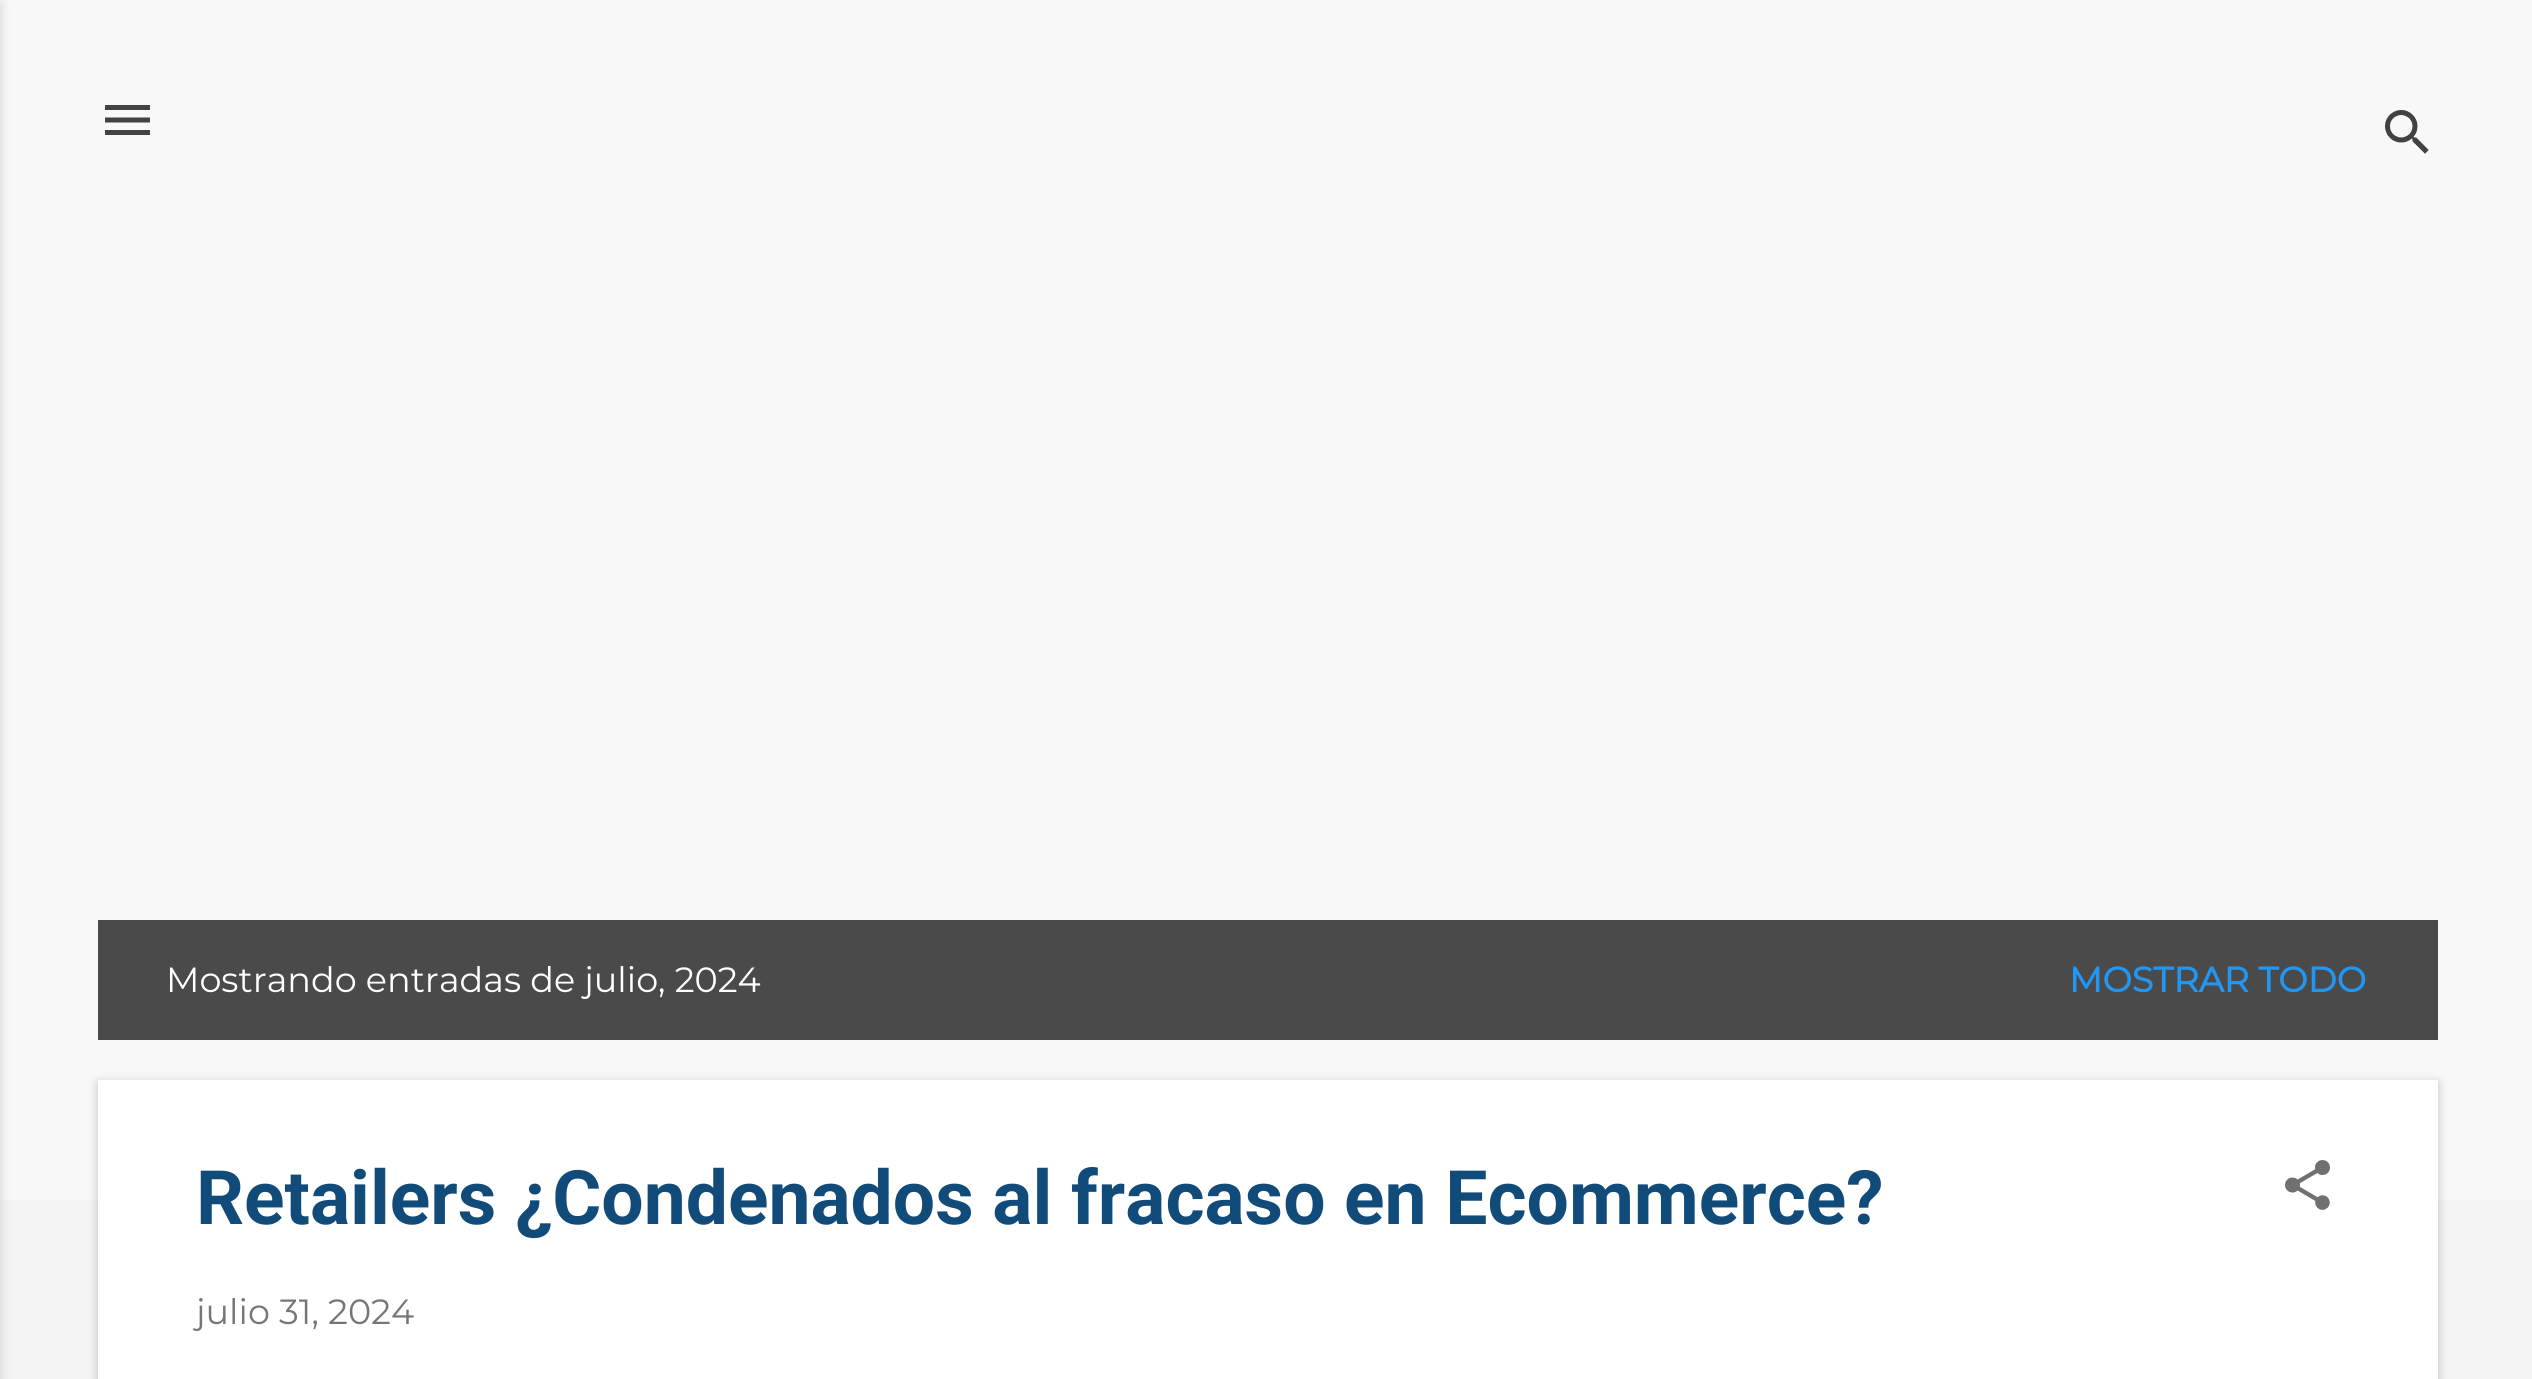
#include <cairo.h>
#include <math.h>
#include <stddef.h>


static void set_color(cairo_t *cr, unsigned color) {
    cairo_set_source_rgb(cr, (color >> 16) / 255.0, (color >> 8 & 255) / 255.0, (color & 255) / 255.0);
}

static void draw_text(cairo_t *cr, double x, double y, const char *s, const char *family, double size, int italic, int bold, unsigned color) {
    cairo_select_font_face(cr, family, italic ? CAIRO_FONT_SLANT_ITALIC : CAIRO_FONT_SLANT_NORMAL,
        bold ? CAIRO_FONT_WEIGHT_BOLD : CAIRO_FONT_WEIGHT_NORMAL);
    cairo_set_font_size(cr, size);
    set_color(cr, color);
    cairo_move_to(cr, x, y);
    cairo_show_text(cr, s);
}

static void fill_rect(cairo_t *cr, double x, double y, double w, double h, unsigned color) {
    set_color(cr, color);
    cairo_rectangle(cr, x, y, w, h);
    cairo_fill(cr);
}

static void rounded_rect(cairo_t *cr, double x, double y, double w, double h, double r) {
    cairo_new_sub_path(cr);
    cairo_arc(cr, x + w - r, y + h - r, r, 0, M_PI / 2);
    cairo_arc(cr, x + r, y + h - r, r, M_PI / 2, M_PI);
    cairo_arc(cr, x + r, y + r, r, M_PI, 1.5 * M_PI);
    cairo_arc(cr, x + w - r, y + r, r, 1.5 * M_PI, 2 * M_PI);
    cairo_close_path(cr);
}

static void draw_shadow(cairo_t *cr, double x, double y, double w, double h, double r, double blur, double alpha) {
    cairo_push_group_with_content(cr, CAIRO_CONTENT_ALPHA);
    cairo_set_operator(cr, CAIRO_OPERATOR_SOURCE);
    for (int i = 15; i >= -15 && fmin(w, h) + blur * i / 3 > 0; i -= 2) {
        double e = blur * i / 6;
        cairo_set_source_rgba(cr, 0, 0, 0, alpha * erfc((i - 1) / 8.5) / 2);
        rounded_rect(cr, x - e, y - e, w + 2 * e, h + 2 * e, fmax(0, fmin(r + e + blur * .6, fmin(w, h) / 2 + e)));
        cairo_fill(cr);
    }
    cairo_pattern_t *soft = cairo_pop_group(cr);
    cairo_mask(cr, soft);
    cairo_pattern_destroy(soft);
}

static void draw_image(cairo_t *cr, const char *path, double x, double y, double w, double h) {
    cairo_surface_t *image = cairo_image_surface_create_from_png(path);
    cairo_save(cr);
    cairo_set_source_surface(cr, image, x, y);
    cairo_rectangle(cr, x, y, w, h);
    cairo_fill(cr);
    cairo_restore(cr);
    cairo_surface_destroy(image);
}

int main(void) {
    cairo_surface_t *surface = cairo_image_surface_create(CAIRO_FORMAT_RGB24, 2532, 1379);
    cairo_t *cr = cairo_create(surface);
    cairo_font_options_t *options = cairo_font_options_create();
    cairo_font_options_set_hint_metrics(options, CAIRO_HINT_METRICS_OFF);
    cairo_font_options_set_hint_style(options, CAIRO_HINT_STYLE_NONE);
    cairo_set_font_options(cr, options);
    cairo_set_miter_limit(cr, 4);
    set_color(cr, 0xF4F4F4);
    cairo_paint(cr);
    fill_rect(cr, 0, 0, 2532, 1200, 0xF8F8F8);
    set_color(cr, 0x000000);
    draw_shadow(cr, -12, 3, 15, 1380, 0, 4, 0.1);
    draw_image(cr, "assets/img1.png", 105, 105, 45, 30);
    draw_image(cr, "assets/img2.png", 2385, 110, 44, 44);
    fill_rect(cr, 98, 920, 2340, 120, 0x4A4A4A);
    draw_text(cr, 166, 992, "Mostrando entradas de julio, 2024", "Montserrat Thin", 35, 0, 0, 0xFFFFFF);
    draw_text(cr, 2069, 992, "MOSTRAR TODO", "Montserrat", 35, 0, 1, 0x2196F3);
    set_color(cr, 0x3C4043);
    draw_shadow(cr, 98, 1083, 2340, 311, 0, 5, 0.3);
    fill_rect(cr, 98, 1080, 2340, 299, 0xFFFFFF);
    draw_text(cr, 196, 1224, "Retailers ¿Condenados al fracaso en Ecommerce?", "Roboto", 75, 0, 1, 0x114B7A);
    draw_image(cr, "assets/img3.png", 2285, 1160, 45, 50);
    draw_text(cr, 196, 1324, "julio 31, 2024", "Montserrat Thin", 35, 0, 0, 0x767676);
    cairo_surface_write_to_png(surface, "output.png");
    cairo_font_options_destroy(options);
    cairo_destroy(cr);
    cairo_surface_destroy(surface);
    return 0;
}
